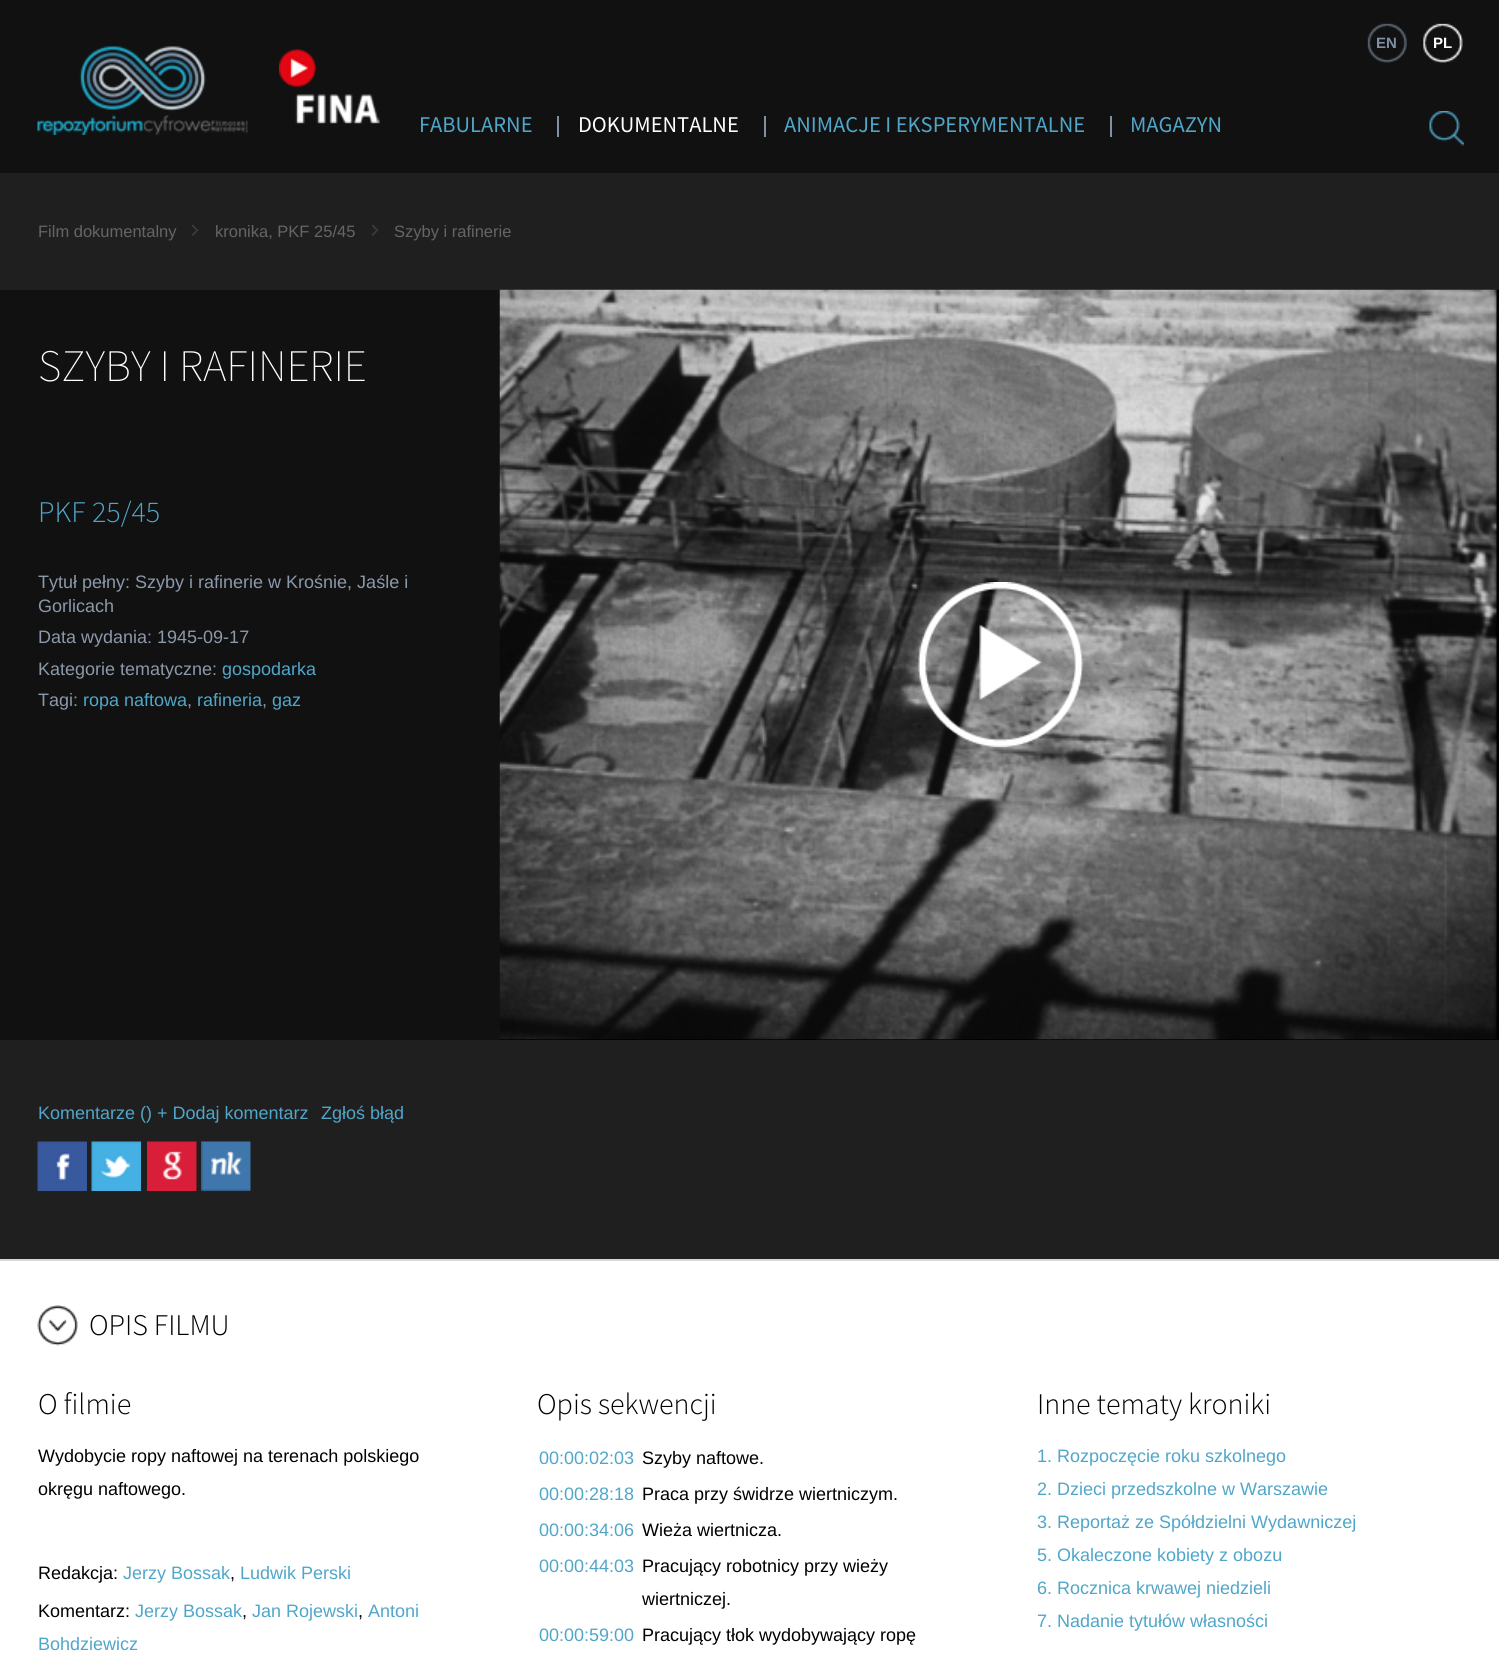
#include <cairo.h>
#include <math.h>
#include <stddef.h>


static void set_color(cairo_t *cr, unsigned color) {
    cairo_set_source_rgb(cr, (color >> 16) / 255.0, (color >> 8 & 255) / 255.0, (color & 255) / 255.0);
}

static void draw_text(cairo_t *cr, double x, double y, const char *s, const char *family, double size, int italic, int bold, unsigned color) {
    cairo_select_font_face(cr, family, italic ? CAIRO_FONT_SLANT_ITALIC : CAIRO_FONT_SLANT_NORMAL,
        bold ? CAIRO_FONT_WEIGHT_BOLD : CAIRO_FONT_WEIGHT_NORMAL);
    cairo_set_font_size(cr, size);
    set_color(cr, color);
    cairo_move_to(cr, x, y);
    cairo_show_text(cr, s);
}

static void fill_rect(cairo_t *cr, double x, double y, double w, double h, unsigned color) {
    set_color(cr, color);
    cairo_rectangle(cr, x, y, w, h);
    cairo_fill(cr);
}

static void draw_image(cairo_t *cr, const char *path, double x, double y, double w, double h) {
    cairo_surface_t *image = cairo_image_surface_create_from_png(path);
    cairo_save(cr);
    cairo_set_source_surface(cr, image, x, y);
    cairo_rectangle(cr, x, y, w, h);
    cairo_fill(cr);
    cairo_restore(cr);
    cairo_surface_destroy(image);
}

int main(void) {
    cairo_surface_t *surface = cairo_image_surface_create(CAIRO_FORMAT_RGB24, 1499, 1653);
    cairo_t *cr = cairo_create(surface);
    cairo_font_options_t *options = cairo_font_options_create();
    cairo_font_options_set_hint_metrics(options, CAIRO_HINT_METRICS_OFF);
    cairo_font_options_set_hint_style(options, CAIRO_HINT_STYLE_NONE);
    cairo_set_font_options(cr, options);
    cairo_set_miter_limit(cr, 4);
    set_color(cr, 0x111111);
    cairo_paint(cr);
    draw_image(cr, "assets/img1.png", 1367, 23, 40, 40);
    draw_image(cr, "assets/img2.png", 1423, 23, 40, 40);
    draw_text(cr, 1376, 48, "EN", "Liberation Sans", 15, 0, 1, 0x8090A2);
    draw_text(cr, 1433, 48, "PL", "Liberation Sans", 15, 0, 1, 0xFFFFFF);
    draw_image(cr, "assets/img3.png", 37, 46, 211, 89);
    draw_image(cr, "assets/img4.png", 279, 49, 101, 75);
    draw_text(cr, 419, 132, "FABULARNE", "Source Sans Pro", 22.5, 0, 0, 0x50A6C9);
    draw_text(cr, 578, 132, "DOKUMENTALNE", "Source Sans Pro", 22.5, 0, 0, 0xFFFFFF);
    fill_rect(cr, 557, 116, 2, 21, 0x8090A2);
    draw_text(cr, 784, 132, "ANIMACJE I EKSPERYMENTALNE", "Source Sans Pro", 22.5, 0, 0, 0x50A6C9);
    fill_rect(cr, 764, 116, 2, 21, 0x8090A2);
    draw_text(cr, 1130, 132, "MAGAZYN", "Source Sans Pro", 22.5, 0, 0, 0x50A6C9);
    fill_rect(cr, 1110, 116, 2, 21, 0x8090A2);
    draw_image(cr, "assets/img5.png", 1429, 111, 35, 35);
    fill_rect(cr, 0, 173, 1499, 117, 0x1F1F1F);
    draw_text(cr, 38, 237, "Film dokumentalny", "Liberation Sans", 16.5, 0, 0, 0x656565);
    draw_image(cr, "assets/img6.png", 191, 224, 8, 12);
    draw_text(cr, 215, 237, "kronika, PKF 25/45", "Liberation Sans", 16.5, 0, 0, 0x656565);
    draw_image(cr, "assets/img7.png", 371, 224, 8, 12);
    draw_text(cr, 394, 237, "Szyby i rafinerie", "Liberation Sans", 16.5, 0, 0, 0x656565);
    draw_text(cr, 38, 381, "SZYBY I RAFINERIE", "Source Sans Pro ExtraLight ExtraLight", 45, 0, 0, 0xFFFFFF);
    fill_rect(cr, 500, 290, 999, 750, 0x000000);
    draw_image(cr, "assets/img8.png", 499, 289, 1000, 751);
    draw_image(cr, "assets/img9.png", 918, 582, 165, 165);
    draw_text(cr, 38, 522, "PKF", "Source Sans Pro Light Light", 30, 0, 0, 0x50A6C9);
    draw_text(cr, 92, 522, "25/45", "Source Sans Pro Light Light", 30, 0, 0, 0x50A6C9);
    draw_text(cr, 38, 588, "Tytuł pełny: Szyby i rafinerie w Krośnie, Jaśle i", "Liberation Sans", 18, 0, 0, 0x8B99AA);
    draw_text(cr, 38, 612, "Gorlicach", "Liberation Sans", 18, 0, 0, 0x8B99AA);
    draw_text(cr, 38, 643, "Data wydania: 1945-09-17", "Liberation Sans", 18, 0, 0, 0x8B99AA);
    draw_text(cr, 38, 675, "Kategorie tematyczne:", "Liberation Sans", 18, 0, 0, 0x8B99AA);
    draw_text(cr, 222, 675, "gospodarka", "Liberation Sans", 18, 0, 0, 0x50A6C9);
    draw_text(cr, 38, 706, "Tagi:", "Liberation Sans", 18, 0, 0, 0x8B99AA);
    draw_text(cr, 83, 706, "ropa naftowa", "Liberation Sans", 18, 0, 0, 0x50A6C9);
    draw_text(cr, 187, 706, ",", "Liberation Sans", 18, 0, 0, 0x8B99AA);
    draw_text(cr, 197, 706, "rafineria", "Liberation Sans", 18, 0, 0, 0x50A6C9);
    draw_text(cr, 262, 706, ",", "Liberation Sans", 18, 0, 0, 0x8B99AA);
    draw_text(cr, 272, 706, "gaz", "Liberation Sans", 18, 0, 0, 0x50A6C9);
    fill_rect(cr, 0, 1040, 1499, 219, 0x1F1F1F);
    draw_text(cr, 38, 1119, "Komentarze () + Dodaj komentarz", "Liberation Sans", 18, 0, 0, 0x50A6C9);
    draw_text(cr, 321, 1119, "Zgłoś błąd", "Liberation Sans", 18, 0, 0, 0x50A6C9);
    draw_image(cr, "assets/img10.png", 37, 1141, 50, 50);
    draw_image(cr, "assets/img11.png", 91, 1141, 50, 50);
    draw_image(cr, "assets/img12.png", 147, 1141, 50, 50);
    draw_image(cr, "assets/img13.png", 201, 1141, 50, 50);
    fill_rect(cr, 0, 1261, 1499, 392, 0xFFFFFF);
    fill_rect(cr, 0, 1259, 1499, 2, 0xD6D8DB);
    draw_image(cr, "assets/img14.png", 37, 1305, 41, 41);
    draw_text(cr, 89, 1335, "OPIS FILMU", "Source Sans Pro Light Light", 30, 0, 0, 0x000000);
    draw_text(cr, 38, 1414, "O filmie", "Source Sans Pro Light Light", 30, 0, 0, 0x000000);
    draw_text(cr, 38, 1462, "Wydobycie ropy naftowej na terenach polskiego", "Liberation Sans", 18, 0, 0, 0x000000);
    draw_text(cr, 38, 1495, "okręgu naftowego.", "Liberation Sans", 18, 0, 0, 0x000000);
    draw_text(cr, 38, 1579, "Redakcja:", "Liberation Sans", 18, 0, 0, 0x000000);
    draw_text(cr, 123, 1579, "Jerzy Bossak", "Liberation Sans", 18, 0, 0, 0x50A6C9);
    draw_text(cr, 230, 1579, ",", "Liberation Sans", 18, 0, 0, 0x000000);
    draw_text(cr, 240, 1579, "Ludwik Perski", "Liberation Sans", 18, 0, 0, 0x50A6C9);
    draw_text(cr, 38, 1617, "Komentarz:", "Liberation Sans", 18, 0, 0, 0x000000);
    draw_text(cr, 135, 1617, "Jerzy Bossak", "Liberation Sans", 18, 0, 0, 0x50A6C9);
    draw_text(cr, 242, 1617, ",", "Liberation Sans", 18, 0, 0, 0x000000);
    draw_text(cr, 252, 1617, "Jan Rojewski", "Liberation Sans", 18, 0, 0, 0x50A6C9);
    draw_text(cr, 358, 1617, ",", "Liberation Sans", 18, 0, 0, 0x000000);
    draw_text(cr, 368, 1617, "Antoni", "Liberation Sans", 18, 0, 0, 0x50A6C9);
    draw_text(cr, 38, 1650, "Bohdziewicz", "Liberation Sans", 18, 0, 0, 0x50A6C9);
    draw_text(cr, 537, 1414, "Opis sekwencji", "Source Sans Pro Light Light", 30, 0, 0, 0x000000);
    draw_text(cr, 539, 1464, "00:00:02:03", "Liberation Sans", 18, 0, 0, 0x50A6C9);
    draw_text(cr, 642, 1464, "Szyby naftowe.", "Liberation Sans", 18, 0, 0, 0x000000);
    draw_text(cr, 539, 1500, "00:00:28:18", "Liberation Sans", 18, 0, 0, 0x50A6C9);
    draw_text(cr, 642, 1500, "Praca przy świdrze wiertniczym.", "Liberation Sans", 18, 0, 0, 0x000000);
    draw_text(cr, 539, 1536, "00:00:34:06", "Liberation Sans", 18, 0, 0, 0x50A6C9);
    draw_text(cr, 642, 1536, "Wieża wiertnicza.", "Liberation Sans", 18, 0, 0, 0x000000);
    draw_text(cr, 539, 1572, "00:00:44:03", "Liberation Sans", 18, 0, 0, 0x50A6C9);
    draw_text(cr, 642, 1572, "Pracujący robotnicy przy wieży", "Liberation Sans", 18, 0, 0, 0x000000);
    draw_text(cr, 642, 1605, "wiertniczej.", "Liberation Sans", 18, 0, 0, 0x000000);
    draw_text(cr, 539, 1641, "00:00:59:00", "Liberation Sans", 18, 0, 0, 0x50A6C9);
    draw_text(cr, 642, 1641, "Pracujący tłok wydobywający ropę", "Liberation Sans", 18, 0, 0, 0x000000);
    draw_text(cr, 1037, 1414, "Inne tematy kroniki", "Source Sans Pro Light Light", 30, 0, 0, 0x000000);
    draw_text(cr, 1037, 1462, "1. Rozpoczęcie roku szkolnego", "Liberation Sans", 18, 0, 0, 0x50A6C9);
    draw_text(cr, 1037, 1495, "2. Dzieci przedszkolne w Warszawie", "Liberation Sans", 18, 0, 0, 0x50A6C9);
    draw_text(cr, 1037, 1528, "3. Reportaż ze Spółdzielni Wydawniczej", "Liberation Sans", 18, 0, 0, 0x50A6C9);
    draw_text(cr, 1037, 1561, "5. Okaleczone kobiety z obozu", "Liberation Sans", 18, 0, 0, 0x50A6C9);
    draw_text(cr, 1037, 1594, "6. Rocznica krwawej niedzieli", "Liberation Sans", 18, 0, 0, 0x50A6C9);
    draw_text(cr, 1037, 1627, "7. Nadanie tytułów własności", "Liberation Sans", 18, 0, 0, 0x50A6C9);
    cairo_surface_write_to_png(surface, "output.png");
    cairo_font_options_destroy(options);
    cairo_destroy(cr);
    cairo_surface_destroy(surface);
    return 0;
}
